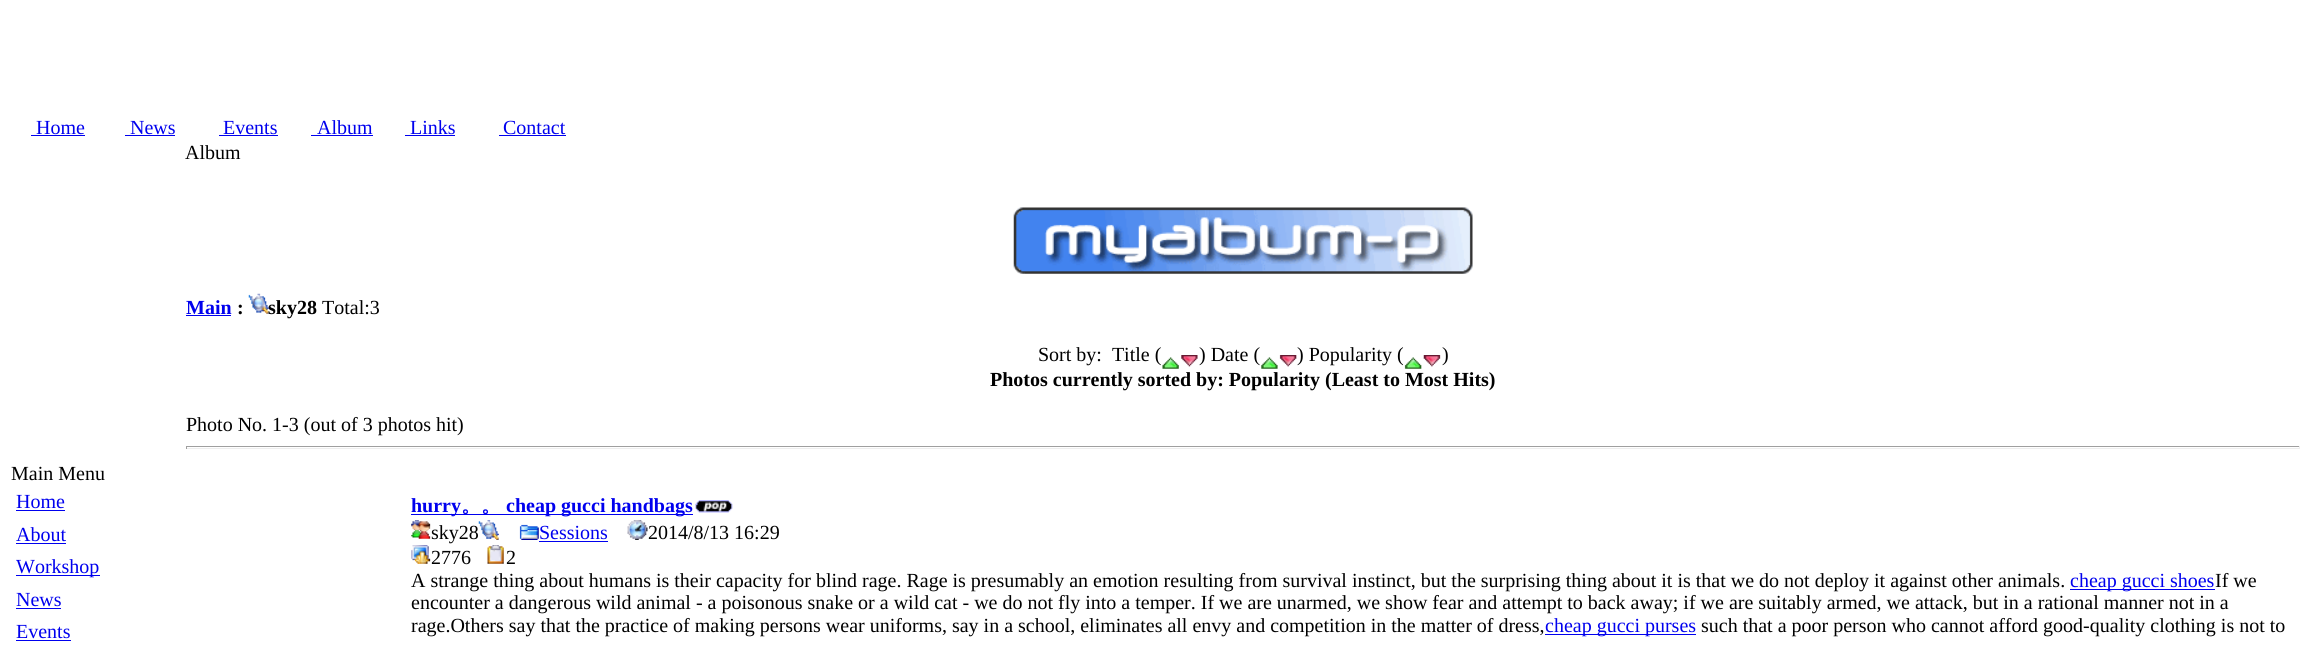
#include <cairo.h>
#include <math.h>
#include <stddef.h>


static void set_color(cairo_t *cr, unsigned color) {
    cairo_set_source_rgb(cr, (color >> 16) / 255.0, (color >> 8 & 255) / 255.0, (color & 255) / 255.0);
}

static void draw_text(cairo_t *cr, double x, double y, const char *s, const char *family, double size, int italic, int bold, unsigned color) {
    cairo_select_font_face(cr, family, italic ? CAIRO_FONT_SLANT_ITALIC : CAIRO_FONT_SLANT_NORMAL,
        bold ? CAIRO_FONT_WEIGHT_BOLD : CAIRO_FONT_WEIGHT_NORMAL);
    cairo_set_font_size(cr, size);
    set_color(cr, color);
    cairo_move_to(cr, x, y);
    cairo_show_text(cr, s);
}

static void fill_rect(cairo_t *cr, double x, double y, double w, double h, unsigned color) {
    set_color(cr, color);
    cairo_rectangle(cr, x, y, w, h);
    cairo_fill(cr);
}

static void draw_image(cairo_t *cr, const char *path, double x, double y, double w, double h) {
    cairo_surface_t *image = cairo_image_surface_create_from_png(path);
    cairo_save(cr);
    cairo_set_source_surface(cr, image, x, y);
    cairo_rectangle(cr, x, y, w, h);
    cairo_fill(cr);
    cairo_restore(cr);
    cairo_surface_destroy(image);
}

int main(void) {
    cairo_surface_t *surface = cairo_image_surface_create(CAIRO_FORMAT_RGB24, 2312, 647);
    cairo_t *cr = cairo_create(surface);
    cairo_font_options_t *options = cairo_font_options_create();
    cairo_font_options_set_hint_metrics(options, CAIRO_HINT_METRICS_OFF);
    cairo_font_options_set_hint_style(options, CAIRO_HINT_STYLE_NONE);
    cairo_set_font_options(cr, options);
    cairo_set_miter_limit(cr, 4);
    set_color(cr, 0xFFFFFF);
    cairo_paint(cr);
    draw_text(cr, 36, 134, "Home", "Liberation Serif", 20, 0, 0, 0x0000EE);
    fill_rect(cr, 31, 135, 54, 1, 0x0000EE);
    draw_text(cr, 130, 134, "News", "Liberation Serif", 20, 0, 0, 0x0000EE);
    fill_rect(cr, 125, 135, 50, 1, 0x0000EE);
    draw_text(cr, 223, 134, "Events", "Liberation Serif", 20, 0, 0, 0x0000EE);
    fill_rect(cr, 219, 135, 59, 1, 0x0000EE);
    draw_text(cr, 317, 134, "Album", "Liberation Serif", 20, 0, 0, 0x0000EE);
    fill_rect(cr, 311, 135, 62, 1, 0x0000EE);
    draw_text(cr, 410, 134, "Links", "Liberation Serif", 20, 0, 0, 0x0000EE);
    fill_rect(cr, 405, 135, 50, 1, 0x0000EE);
    draw_text(cr, 503, 134, "Contact", "Liberation Serif", 20, 0, 0, 0x0000EE);
    fill_rect(cr, 499, 135, 67, 1, 0x0000EE);
    draw_text(cr, 11, 480, "Main Menu", "Liberation Serif", 20, 0, 0, 0x000000);
    draw_text(cr, 16, 508, "Home", "Liberation Serif", 20, 0, 0, 0x0000EE);
    fill_rect(cr, 16, 510, 49, 1, 0x0000EE);
    draw_text(cr, 16, 541, "About", "Liberation Serif", 20, 0, 0, 0x0000EE);
    fill_rect(cr, 16, 543, 50, 1, 0x0000EE);
    fill_rect(cr, 16, 575, 84, 1, 0x0000EE);
    draw_text(cr, 16, 573, "Workshop", "Liberation Serif", 20, 0, 0, 0x0000EE);
    draw_text(cr, 16, 606, "News", "Liberation Serif", 20, 0, 0, 0x0000EE);
    fill_rect(cr, 16, 608, 45, 1, 0x0000EE);
    draw_text(cr, 16, 638, "Events", "Liberation Serif", 20, 0, 0, 0x0000EE);
    fill_rect(cr, 16, 640, 55, 1, 0x0000EE);
    draw_text(cr, 185, 159, "Album", "Liberation Serif", 20, 0, 0, 0x000000);
    draw_image(cr, "assets/img1.png", 1013, 207, 460, 67);
    draw_text(cr, 186, 314, "Main", "Liberation Serif", 20, 0, 1, 0x0000EE);
    fill_rect(cr, 186, 315, 45, 1, 0x0000EE);
    draw_text(cr, 237, 314, ":", "Liberation Serif", 20, 0, 1, 0x000000);
    draw_image(cr, "assets/img2.png", 248, 293, 21, 21);
    draw_text(cr, 268, 314, "sky28", "Liberation Serif", 20, 0, 1, 0x000000);
    draw_text(cr, 322, 314, "Total:3", "Liberation Serif", 20, 0, 0, 0x000000);
    draw_text(cr, 1038, 361, "Sort by:  Title (", "Liberation Serif", 20, 0, 0, 0x000000);
    draw_image(cr, "assets/img3.png", 1162, 357, 17, 12);
    draw_image(cr, "assets/img4.png", 1181, 355, 17, 12);
    draw_text(cr, 1199, 361, ") Date (", "Liberation Serif", 20, 0, 0, 0x000000);
    draw_image(cr, "assets/img5.png", 1261, 357, 17, 12);
    draw_image(cr, "assets/img6.png", 1279, 355, 18, 12);
    draw_text(cr, 1297, 361, ") Popularity (", "Liberation Serif", 20, 0, 0, 0x000000);
    draw_image(cr, "assets/img7.png", 1404, 357, 18, 12);
    draw_image(cr, "assets/img8.png", 1423, 355, 18, 12);
    draw_text(cr, 1442, 361, ")", "Liberation Serif", 20, 0, 0, 0x000000);
    draw_text(cr, 990, 386, "Photos currently sorted by: Popularity (Least to Most Hits)", "Liberation Serif", 20, 0, 1, 0x000000);
    draw_text(cr, 186, 431, "Photo No. 1-3 (out of 3 photos hit)", "Liberation Serif", 20, 0, 0, 0x000000);
    fill_rect(cr, 186, 446, 2114, 1, 0x9F9F9F);
    fill_rect(cr, 2299, 446, 1, 3, 0xEEEEEE);
    fill_rect(cr, 186, 448, 2114, 1, 0xEEEEEE);
    fill_rect(cr, 186, 446, 1, 3, 0x9F9F9F);
    fill_rect(cr, 411, 514, 282, 1, 0x0000EE);
    draw_text(cr, 411, 512, "hurry", "Liberation Serif", 20, 0, 1, 0x0000EE);
    draw_text(cr, 461, 512, "。。", "WenQuanYi Zen Hei", 20, 0, 1, 0x0000EE);
    draw_text(cr, 506, 512, "cheap gucci handbags", "Liberation Serif", 20, 0, 1, 0x0000EE);
    draw_image(cr, "assets/img9.png", 695, 500, 38, 13);
    draw_image(cr, "assets/img10.png", 411, 520, 20, 19);
    draw_text(cr, 431, 539, "sky28", "Liberation Serif", 20, 0, 0, 0x000000);
    draw_image(cr, "assets/img11.png", 478, 520, 21, 20);
    draw_image(cr, "assets/img12.png", 519, 524, 20, 16);
    draw_text(cr, 539, 539, "Sessions", "Liberation Serif", 20, 0, 0, 0x0000EE);
    fill_rect(cr, 539, 541, 69, 1, 0x0000EE);
    draw_image(cr, "assets/img13.png", 627, 520, 21, 20);
    draw_text(cr, 648, 539, "2014/8/13 16:29", "Liberation Serif", 20, 0, 0, 0x000000);
    draw_image(cr, "assets/img14.png", 411, 545, 20, 19);
    draw_text(cr, 431, 564, "2776", "Liberation Serif", 20, 0, 0, 0x000000);
    draw_image(cr, "assets/img15.png", 487, 545, 17, 19);
    draw_text(cr, 506, 564, "2", "Liberation Serif", 20, 0, 0, 0x000000);
    draw_text(cr, 411, 587, "A strange thing about humans is their capacity for blind rage. Rage is presumably an emotion resulting from survival instinct, but the surprising thing about it is that we do not deploy it against other animals.", "Liberation Serif", 20, 0, 0, 0x000000);
    fill_rect(cr, 2070, 589, 145, 1, 0x0000EE);
    draw_text(cr, 2070, 587, "cheap gucci shoes", "Liberation Serif", 20, 0, 0, 0x0000EE);
    draw_text(cr, 2215, 587, "If we", "Liberation Serif", 20, 0, 0, 0x000000);
    draw_text(cr, 411, 609, "encounter a dangerous wild animal - a poisonous snake or a wild cat - we do not fly into a temper. If we are unarmed, we show fear and attempt to back away; if we are suitably armed, we attack, but in a rational manner not in a", "Liberation Serif", 20, 0, 0, 0x000000);
    draw_text(cr, 411, 632, "rage.Others say that the practice of making persons wear uniforms, say in a school, eliminates all envy and competition in the matter of dress,", "Liberation Serif", 20, 0, 0, 0x000000);
    fill_rect(cr, 1545, 634, 151, 1, 0x0000EE);
    draw_text(cr, 1545, 632, "cheap gucci purses", "Liberation Serif", 20, 0, 0, 0x0000EE);
    draw_text(cr, 1701, 632, "such that a poor person who cannot afford good-quality clothing is not to", "Liberation Serif", 20, 0, 0, 0x000000);
    cairo_surface_write_to_png(surface, "output.png");
    cairo_font_options_destroy(options);
    cairo_destroy(cr);
    cairo_surface_destroy(surface);
    return 0;
}
